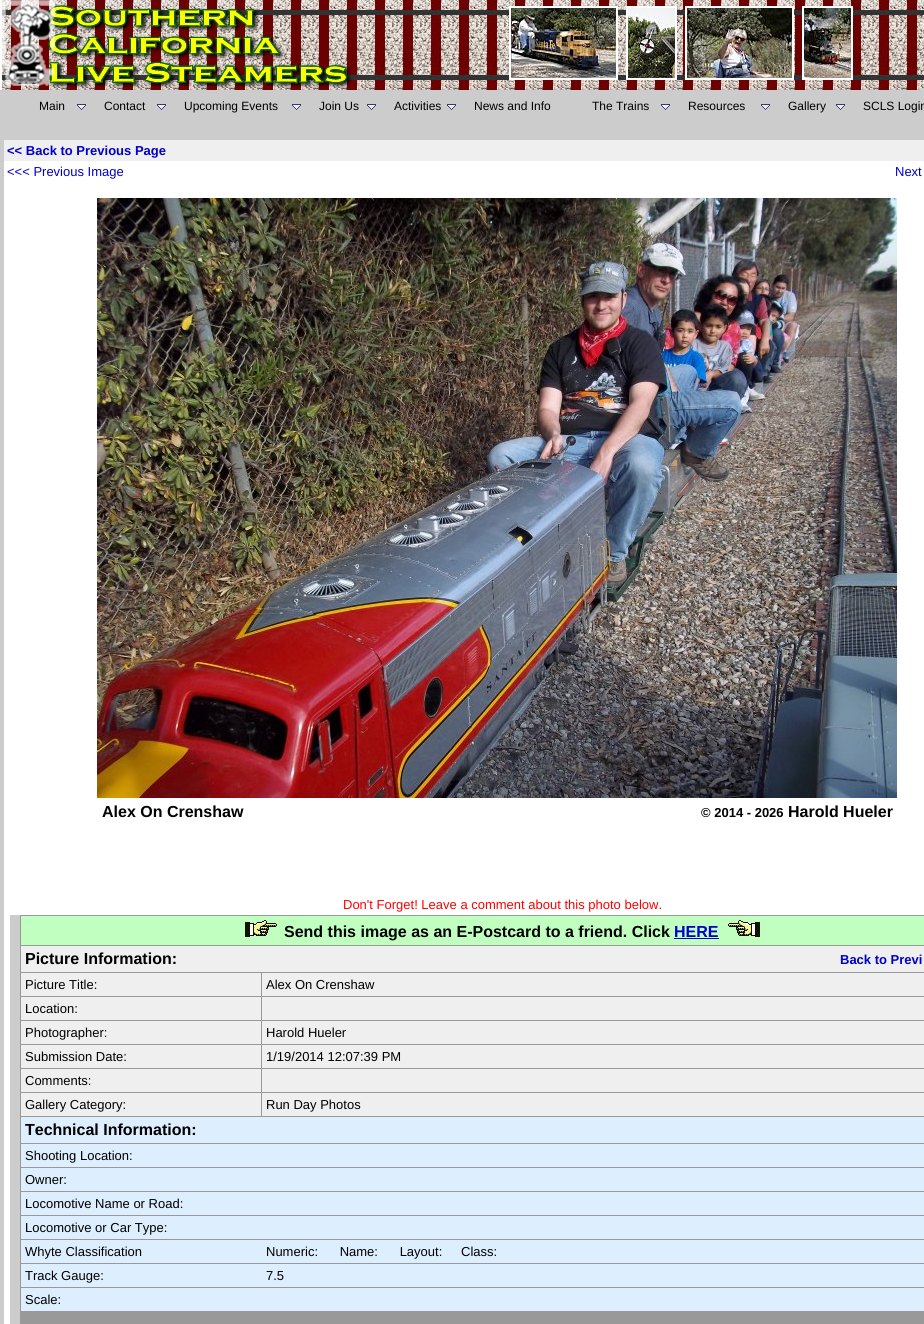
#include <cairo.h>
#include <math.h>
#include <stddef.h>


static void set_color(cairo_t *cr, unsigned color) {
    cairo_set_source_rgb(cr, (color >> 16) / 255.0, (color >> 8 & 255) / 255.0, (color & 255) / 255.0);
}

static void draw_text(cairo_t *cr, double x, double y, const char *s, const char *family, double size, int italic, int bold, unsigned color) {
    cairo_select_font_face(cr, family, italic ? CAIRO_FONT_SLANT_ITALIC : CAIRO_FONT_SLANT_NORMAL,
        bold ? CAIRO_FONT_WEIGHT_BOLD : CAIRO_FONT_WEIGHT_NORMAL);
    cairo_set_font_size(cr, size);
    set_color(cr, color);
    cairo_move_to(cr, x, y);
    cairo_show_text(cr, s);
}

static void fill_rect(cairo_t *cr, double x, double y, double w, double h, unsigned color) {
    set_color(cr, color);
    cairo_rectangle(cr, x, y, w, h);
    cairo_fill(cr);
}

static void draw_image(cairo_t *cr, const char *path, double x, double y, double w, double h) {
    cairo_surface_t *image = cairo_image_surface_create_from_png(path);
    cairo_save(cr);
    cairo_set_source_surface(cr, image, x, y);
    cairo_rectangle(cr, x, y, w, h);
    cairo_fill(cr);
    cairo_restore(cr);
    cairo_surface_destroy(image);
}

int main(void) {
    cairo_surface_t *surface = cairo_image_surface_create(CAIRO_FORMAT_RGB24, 924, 1324);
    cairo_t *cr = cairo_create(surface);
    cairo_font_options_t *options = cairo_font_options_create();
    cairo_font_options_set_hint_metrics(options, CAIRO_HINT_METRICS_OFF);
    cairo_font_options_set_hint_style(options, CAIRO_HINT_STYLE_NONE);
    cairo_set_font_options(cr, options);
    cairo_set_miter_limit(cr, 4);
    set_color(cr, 0xFFFFFF);
    cairo_paint(cr);
    draw_image(cr, "assets/img1.png", 0, 0, 366, 90);
    draw_image(cr, "assets/img2.png", 366, 0, 558, 90);
    cairo_rectangle(cr, 510, 7, 107, 72);
    set_color(cr, 0xFFFFFF);
    cairo_stroke(cr);
    cairo_rectangle(cr, 627, 7, 49, 72);
    cairo_stroke(cr);
    cairo_rectangle(cr, 686, 7, 107, 72);
    cairo_stroke(cr);
    cairo_rectangle(cr, 803, 7, 49, 72);
    cairo_stroke(cr);
    draw_image(cr, "assets/img3.png", 511, 8, 105, 70);
    draw_image(cr, "assets/img4.png", 628, 8, 47, 70);
    draw_image(cr, "assets/img5.png", 687, 8, 105, 70);
    draw_image(cr, "assets/img6.png", 804, 8, 47, 70);
    fill_rect(cr, 0, 90, 924, 32, 0xCCCCCC);
    draw_text(cr, 39, 110, "Main", "Liberation Sans", 12, 0, 0, 0x000000);
    draw_image(cr, "assets/img7.png", 77, 104, 9, 6);
    draw_text(cr, 104, 110, "Contact", "Liberation Sans", 12, 0, 0, 0x000000);
    draw_image(cr, "assets/img7.png", 157, 104, 9, 6);
    draw_text(cr, 184, 110, "Upcoming Events", "Liberation Sans", 12, 0, 0, 0x000000);
    draw_image(cr, "assets/img7.png", 292, 104, 9, 6);
    draw_text(cr, 319, 110, "Join Us", "Liberation Sans", 12, 0, 0, 0x000000);
    draw_image(cr, "assets/img7.png", 367, 104, 9, 6);
    draw_text(cr, 394, 110, "Activities", "Liberation Sans", 12, 0, 0, 0x000000);
    draw_image(cr, "assets/img7.png", 447, 104, 9, 6);
    draw_text(cr, 474, 110, "News and Info", "Liberation Sans", 12, 0, 0, 0x000000);
    draw_text(cr, 592, 110, "The Trains", "Liberation Sans", 12, 0, 0, 0x000000);
    draw_image(cr, "assets/img7.png", 661, 104, 9, 6);
    draw_text(cr, 688, 110, "Resources", "Liberation Sans", 12, 0, 0, 0x000000);
    draw_image(cr, "assets/img7.png", 761, 104, 9, 6);
    draw_text(cr, 788, 110, "Gallery", "Liberation Sans", 12, 0, 0, 0x000000);
    draw_image(cr, "assets/img7.png", 836, 104, 9, 6);
    draw_text(cr, 863, 110, "SCLS Login", "Liberation Sans", 12, 0, 0, 0x000000);
    fill_rect(cr, 0, 122, 924, 18, 0xCCCCCC);
    fill_rect(cr, 0, 140, 4, 1184, 0xCCCCCC);
    fill_rect(cr, 4, 140, 920, 21, 0xEFEFEF);
    draw_text(cr, 7, 155, "<< Back to Previous Page", "Liberation Sans", 13, 0, 1, 0x0000CC);
    draw_text(cr, 7, 176, "<<< Previous Image", "Liberation Sans", 13, 0, 0, 0x0000CC);
    draw_text(cr, 895, 176, "Next", "Liberation Sans", 13, 0, 0, 0x0000CC);
    draw_image(cr, "assets/img8.png", 97, 198, 800, 600);
    draw_text(cr, 102, 817, "Alex On Crenshaw", "Liberation Sans", 16, 0, 1, 0x000000);
    draw_text(cr, 701, 817, "© 2014 - 2026", "Liberation Sans", 13, 0, 1, 0x000000);
    draw_text(cr, 788, 817, "Harold Hueler", "Liberation Sans", 16, 0, 1, 0x000000);
    draw_text(cr, 343, 909, "Don't Forget! Leave a comment about this photo below.", "Liberation Sans", 13, 0, 0, 0xFF0000);
    fill_rect(cr, 10, 915, 10, 409, 0xCCCCCC);
    fill_rect(cr, 20, 915, 904, 409, 0x999999);
    fill_rect(cr, 21, 916, 903, 29, 0xC1FFC1);
    draw_image(cr, "assets/img9.png", 245, 920, 32, 17);
    draw_text(cr, 284, 937, "Send this image as an E-Postcard to a friend. Click", "Liberation Sans", 16, 0, 1, 0x000000);
    draw_text(cr, 674, 937, "HERE", "Liberation Sans", 16, 0, 1, 0x0000CC);
    fill_rect(cr, 674, 938, 45, 1, 0x0000CC);
    draw_image(cr, "assets/img10.png", 728, 920, 32, 17);
    fill_rect(cr, 21, 946, 903, 26, 0xEFEFEF);
    draw_text(cr, 25, 964, "Picture Information:", "Liberation Sans", 16, 0, 1, 0x000000);
    draw_text(cr, 840, 964, "Back to Previ", "Liberation Sans", 13, 0, 1, 0x0000CC);
    fill_rect(cr, 21, 973, 240, 23, 0xEFEFEF);
    draw_text(cr, 25, 989, "Picture Title:", "Liberation Sans", 13, 0, 0, 0x000000);
    fill_rect(cr, 262, 973, 662, 23, 0xEFEFEF);
    draw_text(cr, 266, 989, "Alex On Crenshaw", "Liberation Sans", 13, 0, 0, 0x000000);
    fill_rect(cr, 21, 997, 240, 23, 0xEFEFEF);
    draw_text(cr, 25, 1013, "Location:", "Liberation Sans", 13, 0, 0, 0x000000);
    fill_rect(cr, 262, 997, 662, 23, 0xEFEFEF);
    fill_rect(cr, 21, 1021, 240, 23, 0xEFEFEF);
    draw_text(cr, 25, 1037, "Photographer:", "Liberation Sans", 13, 0, 0, 0x000000);
    fill_rect(cr, 262, 1021, 662, 23, 0xEFEFEF);
    draw_text(cr, 266, 1037, "Harold Hueler", "Liberation Sans", 13, 0, 0, 0x000000);
    fill_rect(cr, 21, 1045, 240, 23, 0xEFEFEF);
    draw_text(cr, 25, 1061, "Submission Date:", "Liberation Sans", 13, 0, 0, 0x000000);
    fill_rect(cr, 262, 1045, 662, 23, 0xEFEFEF);
    draw_text(cr, 266, 1061, "1/19/2014 12:07:39 PM", "Liberation Sans", 13, 0, 0, 0x000000);
    fill_rect(cr, 21, 1069, 240, 23, 0xEFEFEF);
    draw_text(cr, 25, 1085, "Comments:", "Liberation Sans", 13, 0, 0, 0x000000);
    fill_rect(cr, 262, 1069, 662, 23, 0xEFEFEF);
    fill_rect(cr, 21, 1093, 240, 23, 0xEFEFEF);
    draw_text(cr, 25, 1109, "Gallery Category:", "Liberation Sans", 13, 0, 0, 0x000000);
    fill_rect(cr, 262, 1093, 662, 23, 0xEFEFEF);
    draw_text(cr, 266, 1109, "Run Day Photos", "Liberation Sans", 13, 0, 0, 0x000000);
    fill_rect(cr, 21, 1117, 903, 26, 0xDDEEFF);
    draw_text(cr, 25, 1135, "Technical Information:", "Liberation Sans", 16, 0, 1, 0x000000);
    fill_rect(cr, 21, 1144, 903, 23, 0xDDEEFF);
    draw_text(cr, 25, 1160, "Shooting Location:", "Liberation Sans", 13, 0, 0, 0x000000);
    fill_rect(cr, 21, 1168, 903, 23, 0xDDEEFF);
    draw_text(cr, 25, 1184, "Owner:", "Liberation Sans", 13, 0, 0, 0x000000);
    fill_rect(cr, 21, 1192, 903, 23, 0xDDEEFF);
    draw_text(cr, 25, 1208, "Locomotive Name or Road:", "Liberation Sans", 13, 0, 0, 0x000000);
    fill_rect(cr, 21, 1216, 903, 23, 0xDDEEFF);
    draw_text(cr, 25, 1232, "Locomotive or Car Type:", "Liberation Sans", 13, 0, 0, 0x000000);
    fill_rect(cr, 21, 1240, 903, 23, 0xDDEEFF);
    draw_text(cr, 25, 1256, "Whyte Classification", "Liberation Sans", 13, 0, 0, 0x000000);
    draw_text(cr, 266, 1256, "Numeric:      Name:      Layout:", "Liberation Sans", 13, 0, 0, 0x000000);
    draw_text(cr, 461, 1256, "Class:", "Liberation Sans", 13, 0, 0, 0x000000);
    fill_rect(cr, 21, 1264, 903, 23, 0xDDEEFF);
    draw_text(cr, 25, 1280, "Track Gauge:", "Liberation Sans", 13, 0, 0, 0x000000);
    draw_text(cr, 266, 1280, "7.5", "Liberation Sans", 13, 0, 0, 0x000000);
    fill_rect(cr, 21, 1288, 903, 23, 0xDDEEFF);
    draw_text(cr, 25, 1304, "Scale:", "Liberation Sans", 13, 0, 0, 0x000000);
    cairo_surface_write_to_png(surface, "output.png");
    cairo_font_options_destroy(options);
    cairo_destroy(cr);
    cairo_surface_destroy(surface);
    return 0;
}
